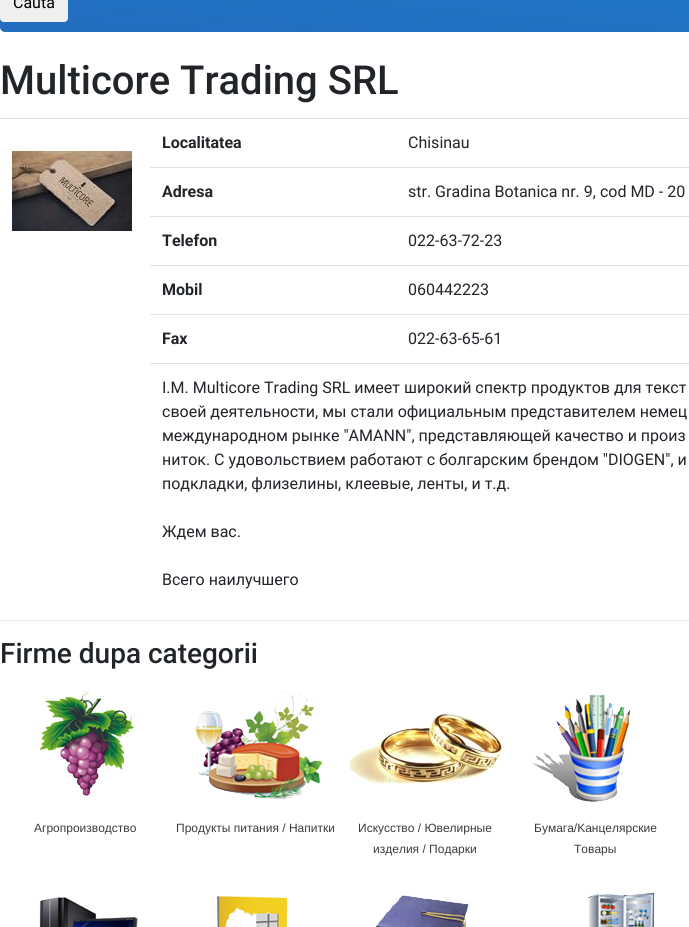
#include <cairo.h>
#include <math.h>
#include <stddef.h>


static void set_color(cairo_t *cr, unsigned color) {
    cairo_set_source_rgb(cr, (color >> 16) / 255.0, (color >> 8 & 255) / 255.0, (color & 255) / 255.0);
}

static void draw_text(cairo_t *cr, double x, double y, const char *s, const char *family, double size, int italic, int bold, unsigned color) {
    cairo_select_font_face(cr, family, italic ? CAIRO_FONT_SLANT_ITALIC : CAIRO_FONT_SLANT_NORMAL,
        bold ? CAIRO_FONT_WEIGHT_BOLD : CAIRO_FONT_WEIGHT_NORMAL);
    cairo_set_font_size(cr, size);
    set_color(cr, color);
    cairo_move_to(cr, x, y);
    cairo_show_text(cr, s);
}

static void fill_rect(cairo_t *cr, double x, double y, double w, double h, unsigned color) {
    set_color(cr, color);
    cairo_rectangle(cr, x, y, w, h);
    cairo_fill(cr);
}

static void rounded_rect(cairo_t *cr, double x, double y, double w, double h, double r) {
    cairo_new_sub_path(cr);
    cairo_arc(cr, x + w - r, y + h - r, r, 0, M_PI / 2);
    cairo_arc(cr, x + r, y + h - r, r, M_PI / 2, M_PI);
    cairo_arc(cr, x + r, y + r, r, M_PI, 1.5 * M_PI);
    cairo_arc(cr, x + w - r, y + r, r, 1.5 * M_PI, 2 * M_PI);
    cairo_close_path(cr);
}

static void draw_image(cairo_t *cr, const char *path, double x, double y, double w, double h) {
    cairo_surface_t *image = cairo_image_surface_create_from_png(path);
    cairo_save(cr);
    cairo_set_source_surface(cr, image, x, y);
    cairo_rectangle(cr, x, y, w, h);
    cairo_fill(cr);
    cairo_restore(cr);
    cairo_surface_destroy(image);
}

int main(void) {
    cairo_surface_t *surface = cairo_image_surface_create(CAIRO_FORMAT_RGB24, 689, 927);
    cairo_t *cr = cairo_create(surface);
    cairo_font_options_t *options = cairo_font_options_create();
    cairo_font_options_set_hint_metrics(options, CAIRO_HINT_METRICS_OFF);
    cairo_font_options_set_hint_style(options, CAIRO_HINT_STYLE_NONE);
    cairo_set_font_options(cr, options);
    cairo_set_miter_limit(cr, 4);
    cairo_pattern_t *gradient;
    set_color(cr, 0xFFFFFF);
    cairo_paint(cr);
    gradient = cairo_pattern_create_linear(480, 74, 500, -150);
    cairo_pattern_add_color_stop_rgba(gradient, 0, 0.137, 0.424, 0.753, 1);
    cairo_pattern_add_color_stop_rgba(gradient, 1, 0.122, 0.51, 0.812, 1);
    cairo_set_source(cr, gradient);
    cairo_pattern_destroy(gradient);
    rounded_rect(cr, 0, -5, 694, 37, 5);
    cairo_fill(cr);
    set_color(cr, 0xEFEFEF);
    rounded_rect(cr, 0, -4, 68, 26, 4);
    cairo_fill(cr);
    draw_text(cr, 13, 8, "Cauta", "Roboto", 16, 0, 0, 0x000000);
    draw_text(cr, 0, 94, "Multicore Trading SRL", "Roboto Medium", 40, 0, 0, 0x212529);
    draw_text(cr, 162, 148, "Localitatea", "Roboto", 16, 0, 1, 0x212529);
    fill_rect(cr, 0, 118, 689, 1, 0xDEE2E6);
    draw_text(cr, 408, 148, "Chisinau", "Roboto", 16, 0, 0, 0x212529);
    draw_image(cr, "assets/img1.png", 12, 147, 120, 85);
    draw_text(cr, 162, 197, "Adresa", "Roboto", 16, 0, 1, 0x212529);
    fill_rect(cr, 150, 167, 539, 1, 0xDEE2E6);
    draw_text(cr, 408, 197, "str. Gradina Botanica nr. 9, cod MD - 20", "Roboto", 16, 0, 0, 0x212529);
    draw_text(cr, 162, 246, "Telefon", "Roboto", 16, 0, 1, 0x212529);
    fill_rect(cr, 150, 216, 539, 1, 0xDEE2E6);
    draw_text(cr, 408, 246, "022-63-72-23", "Roboto", 16, 0, 0, 0x212529);
    draw_text(cr, 162, 295, "Mobil", "Roboto", 16, 0, 1, 0x212529);
    fill_rect(cr, 150, 265, 539, 1, 0xDEE2E6);
    draw_text(cr, 408, 295, "060442223", "Roboto", 16, 0, 0, 0x212529);
    draw_text(cr, 162, 344, "Fax", "Roboto", 16, 0, 1, 0x212529);
    fill_rect(cr, 150, 314, 539, 1, 0xDEE2E6);
    draw_text(cr, 408, 344, "022-63-65-61", "Roboto", 16, 0, 0, 0x212529);
    fill_rect(cr, 150, 363, 539, 1, 0xDEE2E6);
    draw_text(cr, 162, 393, "I.M. Multicore Trading SRL имеет широкий спектр продуктов для текст", "Roboto", 16, 0, 0, 0x212529);
    draw_text(cr, 162, 417, "своей деятельности, мы стали официальным представителем немец", "Roboto", 16, 0, 0, 0x212529);
    draw_text(cr, 162, 441, "международном рынке \"AMANN\", представляющей качество и произ", "Roboto", 16, 0, 0, 0x212529);
    draw_text(cr, 162, 465, "ниток. С удовольствием работают с болгарским брендом \"DIOGEN\", и", "Roboto", 16, 0, 0, 0x212529);
    draw_text(cr, 162, 489, "подкладки, флизелины, клеевые, ленты, и т.д.", "Roboto", 16, 0, 0, 0x212529);
    draw_text(cr, 162, 537, "Ждем вас.", "Roboto", 16, 0, 0, 0x212529);
    draw_text(cr, 162, 585, "Всего наилучшего", "Roboto", 16, 0, 0, 0x212529);
    fill_rect(cr, 0, 620, 689, 1, 0xE6E6E6);
    draw_text(cr, 0, 663, "Firme dupa categorii", "Roboto Medium", 28, 0, 0, 0x212529);
    draw_image(cr, "assets/img2.png", 39, 690, 99, 106);
    draw_text(cr, 34, 832, "Агропроизводство", "Liberation Sans", 12, 0, 0, 0x3B3B3B);
    draw_image(cr, "assets/img3.png", 195, 690, 127, 110);
    draw_text(cr, 176, 832, "Продукты питания / Напитки", "Liberation Sans", 12, 0, 0, 0x3B3B3B);
    draw_image(cr, "assets/img4.png", 349, 714, 154, 70);
    draw_text(cr, 358, 832, "Искусство / Ювелирные", "Liberation Sans", 12, 0, 0, 0x3B3B3B);
    draw_text(cr, 373, 853, "изделия / Подарки", "Liberation Sans", 12, 0, 0, 0x3B3B3B);
    draw_image(cr, "assets/img5.png", 531, 694, 99, 108);
    draw_text(cr, 534, 832, "Бумага/Kанцелярские", "Liberation Sans", 12, 0, 0, 0x3B3B3B);
    draw_text(cr, 574, 853, "Tовары", "Liberation Sans", 12, 0, 0, 0x3B3B3B);
    draw_image(cr, "assets/img6.png", 39, 897, 99, 30);
    draw_image(cr, "assets/img7.png", 217, 896, 71, 31);
    draw_image(cr, "assets/img8.png", 375, 895, 94, 32);
    draw_image(cr, "assets/img9.png", 588, 892, 67, 35);
    cairo_surface_write_to_png(surface, "output.png");
    cairo_font_options_destroy(options);
    cairo_destroy(cr);
    cairo_surface_destroy(surface);
    return 0;
}
